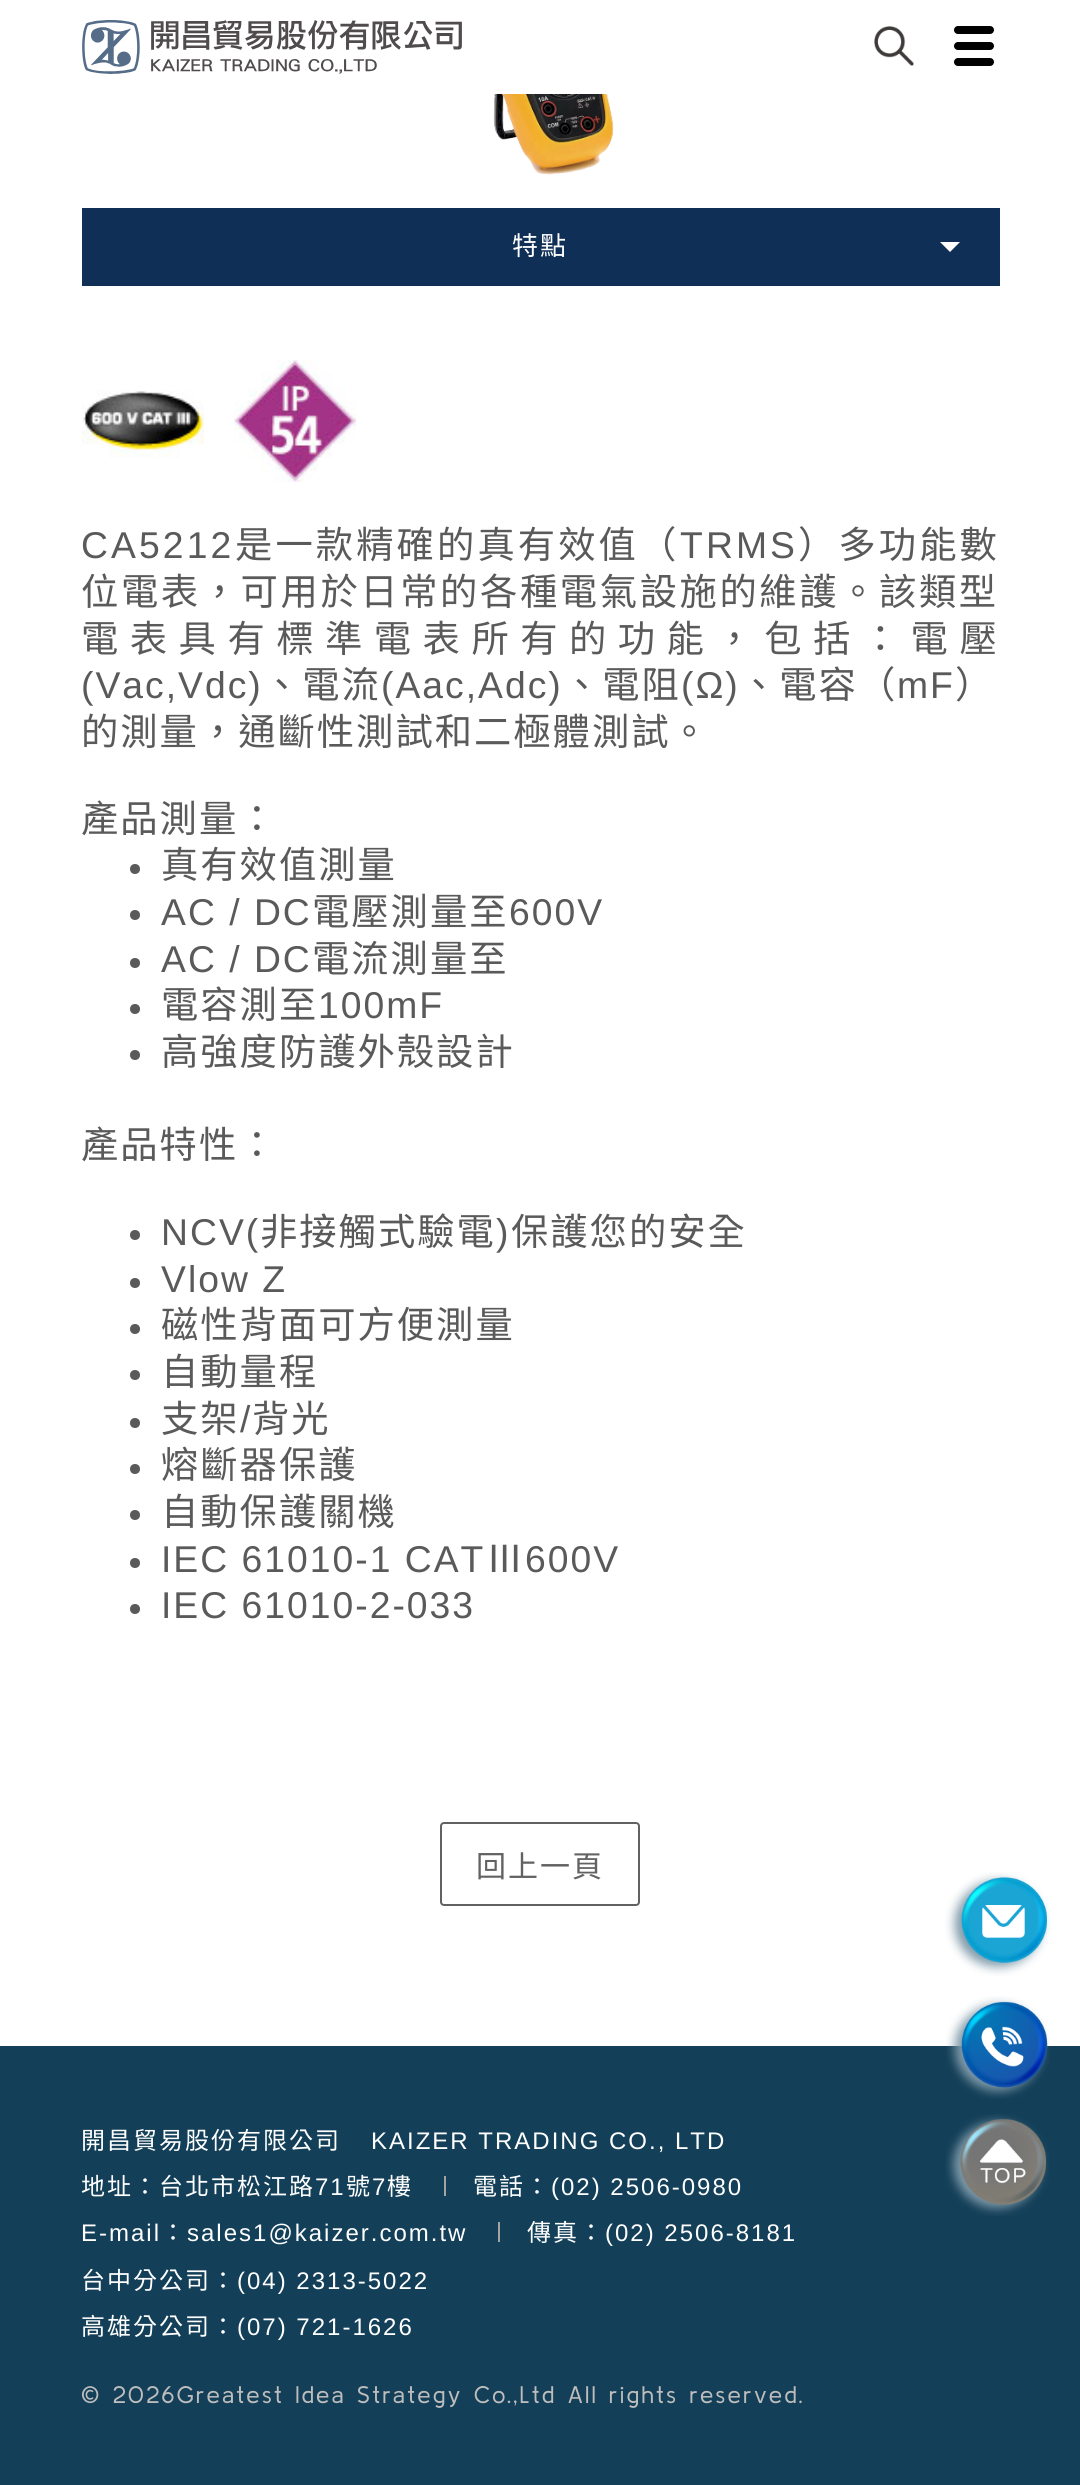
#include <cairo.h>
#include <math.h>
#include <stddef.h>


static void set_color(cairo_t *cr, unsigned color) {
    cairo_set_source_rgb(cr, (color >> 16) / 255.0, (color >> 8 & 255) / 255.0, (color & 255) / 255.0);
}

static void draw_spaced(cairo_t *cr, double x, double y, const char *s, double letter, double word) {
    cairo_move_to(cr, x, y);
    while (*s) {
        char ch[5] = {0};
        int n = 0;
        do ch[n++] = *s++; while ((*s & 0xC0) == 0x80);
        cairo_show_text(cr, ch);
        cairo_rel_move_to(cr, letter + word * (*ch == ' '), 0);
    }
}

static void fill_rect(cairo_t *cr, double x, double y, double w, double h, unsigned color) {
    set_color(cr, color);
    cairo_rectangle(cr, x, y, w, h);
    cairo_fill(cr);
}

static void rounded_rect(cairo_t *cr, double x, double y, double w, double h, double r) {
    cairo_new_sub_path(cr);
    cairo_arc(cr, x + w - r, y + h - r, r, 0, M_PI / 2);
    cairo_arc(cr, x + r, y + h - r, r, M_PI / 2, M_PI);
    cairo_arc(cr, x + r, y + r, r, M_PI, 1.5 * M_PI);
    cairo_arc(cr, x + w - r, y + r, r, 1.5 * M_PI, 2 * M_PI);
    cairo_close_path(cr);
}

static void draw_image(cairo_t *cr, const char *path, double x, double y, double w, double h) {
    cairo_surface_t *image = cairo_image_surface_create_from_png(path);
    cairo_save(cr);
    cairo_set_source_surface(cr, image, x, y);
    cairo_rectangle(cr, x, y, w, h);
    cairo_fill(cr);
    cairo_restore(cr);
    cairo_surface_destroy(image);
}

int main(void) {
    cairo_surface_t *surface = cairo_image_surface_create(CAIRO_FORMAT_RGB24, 1080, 2485);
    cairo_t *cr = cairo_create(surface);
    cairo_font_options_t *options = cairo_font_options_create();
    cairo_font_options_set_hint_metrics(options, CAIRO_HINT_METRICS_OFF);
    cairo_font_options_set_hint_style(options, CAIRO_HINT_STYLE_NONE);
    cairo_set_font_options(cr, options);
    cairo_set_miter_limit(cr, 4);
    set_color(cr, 0xFFFFFF);
    cairo_paint(cr);
    draw_image(cr, "assets/img1.png", 82, 20, 380, 54);
    draw_image(cr, "assets/img2.png", 874, 26, 40, 40);
    set_color(cr, 0x000000);
    rounded_rect(cr, 954, 26, 40, 8, 4);
    cairo_fill(cr);
    rounded_rect(cr, 954, 42, 40, 8, 4);
    cairo_fill(cr);
    rounded_rect(cr, 954, 58, 40, 8, 4);
    cairo_fill(cr);
    draw_image(cr, "assets/img3.png", 493, 94, 121, 81);
    fill_rect(cr, 82, 208, 918, 78, 0x0F2F57);
    cairo_select_font_face(cr, "Noto Sans CJK TC", CAIRO_FONT_SLANT_NORMAL, CAIRO_FONT_WEIGHT_NORMAL);
    cairo_set_font_size(cr, 26);
    set_color(cr, 0xFFFFFF);
    draw_spaced(cr, 512, 255, "特點", 2, 0);
    cairo_new_path(cr);
    cairo_move_to(cr, 940, 242);
    cairo_line_to(cr, 960, 242);
    cairo_line_to(cr, 950, 252);
    cairo_close_path(cr);
    cairo_fill(cr);
    draw_image(cr, "assets/img4.png", 82, 390, 122, 68);
    draw_image(cr, "assets/img5.png", 234, 360, 122, 122);
    cairo_select_font_face(cr, "Liberation Sans", CAIRO_FONT_SLANT_NORMAL, CAIRO_FONT_WEIGHT_NORMAL);
    cairo_set_font_size(cr, 37.3);
    set_color(cr, 0x5A5A5A);
    draw_spaced(cr, 81, 558, "CA5212", 3.1, 0);
    cairo_select_font_face(cr, "Noto Sans CJK TC", CAIRO_FONT_SLANT_NORMAL, CAIRO_FONT_WEIGHT_NORMAL);
    draw_spaced(cr, 235, 558, "是一款精確的真有效值（", 3.1, 0);
    cairo_select_font_face(cr, "Liberation Sans", CAIRO_FONT_SLANT_NORMAL, CAIRO_FONT_WEIGHT_NORMAL);
    draw_spaced(cr, 680, 558, "TRMS", 3.1, 0);
    cairo_select_font_face(cr, "Noto Sans CJK TC", CAIRO_FONT_SLANT_NORMAL, CAIRO_FONT_WEIGHT_NORMAL);
    draw_spaced(cr, 798, 558, "）多功能數", 3.1, 0);
    draw_spaced(cr, 81, 605, "位電表，可用於日常的各種電氣設施的維護。該類型", 2.6, 0);
    draw_spaced(cr, 81, 652, "電表具有標準電表所有的功能，包括：電壓", 11.5, 0);
    cairo_select_font_face(cr, "Liberation Sans", CAIRO_FONT_SLANT_NORMAL, CAIRO_FONT_WEIGHT_NORMAL);
    draw_spaced(cr, 81, 698, "(Vac,Vdc)", 2, 0);
    cairo_select_font_face(cr, "Noto Sans CJK TC", CAIRO_FONT_SLANT_NORMAL, CAIRO_FONT_WEIGHT_NORMAL);
    draw_spaced(cr, 263, 698, "、電流", 2, 0);
    cairo_select_font_face(cr, "Liberation Sans", CAIRO_FONT_SLANT_NORMAL, CAIRO_FONT_WEIGHT_NORMAL);
    draw_spaced(cr, 381, 698, "(Aac,Adc)", 2, 0);
    cairo_select_font_face(cr, "Noto Sans CJK TC", CAIRO_FONT_SLANT_NORMAL, CAIRO_FONT_WEIGHT_NORMAL);
    draw_spaced(cr, 563, 698, "、電阻", 2, 0);
    cairo_select_font_face(cr, "Liberation Sans", CAIRO_FONT_SLANT_NORMAL, CAIRO_FONT_WEIGHT_NORMAL);
    draw_spaced(cr, 681, 698, "(Ω)", 2, 0);
    cairo_select_font_face(cr, "Noto Sans CJK TC", CAIRO_FONT_SLANT_NORMAL, CAIRO_FONT_WEIGHT_NORMAL);
    draw_spaced(cr, 740, 698, "、電容（", 2, 0);
    cairo_select_font_face(cr, "Liberation Sans", CAIRO_FONT_SLANT_NORMAL, CAIRO_FONT_WEIGHT_NORMAL);
    draw_spaced(cr, 897, 698, "mF", 2, 0);
    cairo_select_font_face(cr, "Noto Sans CJK TC", CAIRO_FONT_SLANT_NORMAL, CAIRO_FONT_WEIGHT_NORMAL);
    draw_spaced(cr, 955, 698, "）", 2, 0);
    draw_spaced(cr, 81, 745, "的測量，通斷性測試和二極體測試。", 2, 0);
    draw_spaced(cr, 81, 832, "產品測量：", 2, 0);
    cairo_new_path(cr);
    cairo_arc(cr, 135, 869, 5, 0, 2 * M_PI);
    cairo_fill(cr);
    draw_spaced(cr, 161, 878, "真有效值測量", 2, 0);
    cairo_new_path(cr);
    cairo_arc(cr, 135, 915, 5, 0, 2 * M_PI);
    cairo_fill(cr);
    cairo_select_font_face(cr, "Liberation Sans", CAIRO_FONT_SLANT_NORMAL, CAIRO_FONT_WEIGHT_NORMAL);
    draw_spaced(cr, 161, 925, "AC / DC", 2, 0);
    cairo_select_font_face(cr, "Noto Sans CJK TC", CAIRO_FONT_SLANT_NORMAL, CAIRO_FONT_WEIGHT_NORMAL);
    draw_spaced(cr, 312, 925, "電壓測量至", 2, 0);
    cairo_select_font_face(cr, "Liberation Sans", CAIRO_FONT_SLANT_NORMAL, CAIRO_FONT_WEIGHT_NORMAL);
    draw_spaced(cr, 509, 925, "600V", 2, 0);
    cairo_new_path(cr);
    cairo_arc(cr, 135, 963, 5, 0, 2 * M_PI);
    cairo_fill(cr);
    draw_spaced(cr, 161, 972, "AC / DC", 2, 0);
    cairo_select_font_face(cr, "Noto Sans CJK TC", CAIRO_FONT_SLANT_NORMAL, CAIRO_FONT_WEIGHT_NORMAL);
    draw_spaced(cr, 312, 972, "電流測量至", 2, 0);
    cairo_new_path(cr);
    cairo_arc(cr, 135, 1009, 5, 0, 2 * M_PI);
    cairo_fill(cr);
    draw_spaced(cr, 161, 1018, "電容測至", 2, 0);
    cairo_select_font_face(cr, "Liberation Sans", CAIRO_FONT_SLANT_NORMAL, CAIRO_FONT_WEIGHT_NORMAL);
    draw_spaced(cr, 318, 1018, "100mF", 2, 0);
    cairo_new_path(cr);
    cairo_arc(cr, 135, 1055, 5, 0, 2 * M_PI);
    cairo_fill(cr);
    cairo_select_font_face(cr, "Noto Sans CJK TC", CAIRO_FONT_SLANT_NORMAL, CAIRO_FONT_WEIGHT_NORMAL);
    draw_spaced(cr, 161, 1065, "高強度防護外殼設計", 2, 0);
    draw_spaced(cr, 81, 1158, "產品特性：", 2, 0);
    cairo_new_path(cr);
    cairo_arc(cr, 135, 1235, 5, 0, 2 * M_PI);
    cairo_fill(cr);
    cairo_select_font_face(cr, "Liberation Sans", CAIRO_FONT_SLANT_NORMAL, CAIRO_FONT_WEIGHT_NORMAL);
    draw_spaced(cr, 161, 1245, "NCV(", 2, 0);
    cairo_select_font_face(cr, "Noto Sans CJK TC", CAIRO_FONT_SLANT_NORMAL, CAIRO_FONT_WEIGHT_NORMAL);
    draw_spaced(cr, 260, 1245, "非接觸式驗電", 2, 0);
    cairo_select_font_face(cr, "Liberation Sans", CAIRO_FONT_SLANT_NORMAL, CAIRO_FONT_WEIGHT_NORMAL);
    draw_spaced(cr, 496, 1245, ")", 2, 0);
    cairo_select_font_face(cr, "Noto Sans CJK TC", CAIRO_FONT_SLANT_NORMAL, CAIRO_FONT_WEIGHT_NORMAL);
    draw_spaced(cr, 511, 1245, "保護您的安全", 2, 0);
    cairo_new_path(cr);
    cairo_arc(cr, 135, 1283, 5, 0, 2 * M_PI);
    cairo_fill(cr);
    cairo_select_font_face(cr, "Liberation Sans", CAIRO_FONT_SLANT_NORMAL, CAIRO_FONT_WEIGHT_NORMAL);
    draw_spaced(cr, 161, 1292, "Vlow Z", 2, 0);
    cairo_new_path(cr);
    cairo_arc(cr, 135, 1329, 5, 0, 2 * M_PI);
    cairo_fill(cr);
    cairo_select_font_face(cr, "Noto Sans CJK TC", CAIRO_FONT_SLANT_NORMAL, CAIRO_FONT_WEIGHT_NORMAL);
    draw_spaced(cr, 161, 1338, "磁性背面可方便測量", 2, 0);
    cairo_new_path(cr);
    cairo_arc(cr, 135, 1375, 5, 0, 2 * M_PI);
    cairo_fill(cr);
    draw_spaced(cr, 161, 1385, "自動量程", 2, 0);
    cairo_new_path(cr);
    cairo_arc(cr, 135, 1423, 5, 0, 2 * M_PI);
    cairo_fill(cr);
    draw_spaced(cr, 161, 1432, "支架", 2, 0);
    cairo_select_font_face(cr, "Liberation Sans", CAIRO_FONT_SLANT_NORMAL, CAIRO_FONT_WEIGHT_NORMAL);
    draw_spaced(cr, 240, 1432, "/", 2, 0);
    cairo_select_font_face(cr, "Noto Sans CJK TC", CAIRO_FONT_SLANT_NORMAL, CAIRO_FONT_WEIGHT_NORMAL);
    draw_spaced(cr, 252, 1432, "背光", 2, 0);
    cairo_new_path(cr);
    cairo_arc(cr, 135, 1469, 5, 0, 2 * M_PI);
    cairo_fill(cr);
    draw_spaced(cr, 161, 1478, "熔斷器保護", 2, 0);
    cairo_new_path(cr);
    cairo_arc(cr, 135, 1515, 5, 0, 2 * M_PI);
    cairo_fill(cr);
    draw_spaced(cr, 161, 1525, "自動保護關機", 2, 0);
    cairo_new_path(cr);
    cairo_arc(cr, 135, 1563, 5, 0, 2 * M_PI);
    cairo_fill(cr);
    cairo_select_font_face(cr, "Liberation Sans", CAIRO_FONT_SLANT_NORMAL, CAIRO_FONT_WEIGHT_NORMAL);
    draw_spaced(cr, 161, 1572, "IEC 61010-1 CAT", 2, 0);
    cairo_select_font_face(cr, "Noto Sans CJK TC", CAIRO_FONT_SLANT_NORMAL, CAIRO_FONT_WEIGHT_NORMAL);
    draw_spaced(cr, 486, 1572, "Ⅲ", 2, 0);
    cairo_select_font_face(cr, "Liberation Sans", CAIRO_FONT_SLANT_NORMAL, CAIRO_FONT_WEIGHT_NORMAL);
    draw_spaced(cr, 525, 1572, "600V", 2, 0);
    cairo_new_path(cr);
    cairo_arc(cr, 135, 1609, 5, 0, 2 * M_PI);
    cairo_fill(cr);
    draw_spaced(cr, 161, 1618, "IEC 61010-2-033", 2, 0);
    rounded_rect(cr, 441, 1823, 198, 82, 3);
    set_color(cr, 0x626262);
    cairo_stroke(cr);
    cairo_select_font_face(cr, "Noto Sans CJK TC", CAIRO_FONT_SLANT_NORMAL, CAIRO_FONT_WEIGHT_NORMAL);
    cairo_set_font_size(cr, 30);
    draw_spaced(cr, 476, 1877, "回上一頁", 2, 0);
    fill_rect(cr, 0, 2046, 1080, 439, 0x133F58);
    draw_image(cr, "assets/img6.png", 945, 1872, 106, 104);
    draw_image(cr, "assets/img7.png", 946, 1996, 104, 103);
    cairo_set_font_size(cr, 24);
    set_color(cr, 0xFFFFFF);
    draw_spaced(cr, 81, 2149, "開昌貿易股份有限公司", 2, 0);
    cairo_select_font_face(cr, "Liberation Sans", CAIRO_FONT_SLANT_NORMAL, CAIRO_FONT_WEIGHT_NORMAL);
    draw_spaced(cr, 371, 2149, "KAIZER TRADING CO., LTD", 2, 0);
    cairo_select_font_face(cr, "Noto Sans CJK TC", CAIRO_FONT_SLANT_NORMAL, CAIRO_FONT_WEIGHT_NORMAL);
    draw_spaced(cr, 81, 2195, "地址：台北市松江路", 2, 0);
    cairo_select_font_face(cr, "Liberation Sans", CAIRO_FONT_SLANT_NORMAL, CAIRO_FONT_WEIGHT_NORMAL);
    draw_spaced(cr, 315, 2195, "71", 2, 0);
    cairo_select_font_face(cr, "Noto Sans CJK TC", CAIRO_FONT_SLANT_NORMAL, CAIRO_FONT_WEIGHT_NORMAL);
    draw_spaced(cr, 346, 2195, "號", 2, 0);
    cairo_select_font_face(cr, "Liberation Sans", CAIRO_FONT_SLANT_NORMAL, CAIRO_FONT_WEIGHT_NORMAL);
    draw_spaced(cr, 372, 2195, "7", 2, 0);
    cairo_select_font_face(cr, "Noto Sans CJK TC", CAIRO_FONT_SLANT_NORMAL, CAIRO_FONT_WEIGHT_NORMAL);
    draw_spaced(cr, 387, 2195, "樓", 2, 0);
    fill_rect(cr, 444, 2176, 2, 20, 0xA4A4A4);
    set_color(cr, 0xFFFFFF);
    draw_spaced(cr, 473, 2195, "電話：", 2, 0);
    cairo_select_font_face(cr, "Liberation Sans", CAIRO_FONT_SLANT_NORMAL, CAIRO_FONT_WEIGHT_NORMAL);
    draw_spaced(cr, 551, 2195, "(02) 2506-0980", 2, 0);
    draw_spaced(cr, 81, 2241, "E-mail", 2, 0);
    cairo_select_font_face(cr, "Noto Sans CJK TC", CAIRO_FONT_SLANT_NORMAL, CAIRO_FONT_WEIGHT_NORMAL);
    draw_spaced(cr, 161, 2241, "：", 2, 0);
    cairo_select_font_face(cr, "Liberation Sans", CAIRO_FONT_SLANT_NORMAL, CAIRO_FONT_WEIGHT_NORMAL);
    draw_spaced(cr, 187, 2241, "sales1@kaizer.com.tw", 2, 0);
    fill_rect(cr, 498, 2222, 2, 20, 0xA4A4A4);
    cairo_select_font_face(cr, "Noto Sans CJK TC", CAIRO_FONT_SLANT_NORMAL, CAIRO_FONT_WEIGHT_NORMAL);
    set_color(cr, 0xFFFFFF);
    draw_spaced(cr, 527, 2241, "傳真：", 2, 0);
    cairo_select_font_face(cr, "Liberation Sans", CAIRO_FONT_SLANT_NORMAL, CAIRO_FONT_WEIGHT_NORMAL);
    draw_spaced(cr, 605, 2241, "(02) 2506-8181", 2, 0);
    cairo_select_font_face(cr, "Noto Sans CJK TC", CAIRO_FONT_SLANT_NORMAL, CAIRO_FONT_WEIGHT_NORMAL);
    draw_spaced(cr, 81, 2289, "台中分公司：", 2, 0);
    cairo_select_font_face(cr, "Liberation Sans", CAIRO_FONT_SLANT_NORMAL, CAIRO_FONT_WEIGHT_NORMAL);
    draw_spaced(cr, 237, 2289, "(04) 2313-5022", 2, 0);
    cairo_select_font_face(cr, "Noto Sans CJK TC", CAIRO_FONT_SLANT_NORMAL, CAIRO_FONT_WEIGHT_NORMAL);
    draw_spaced(cr, 81, 2335, "高雄分公司：", 2, 0);
    cairo_select_font_face(cr, "Liberation Sans", CAIRO_FONT_SLANT_NORMAL, CAIRO_FONT_WEIGHT_NORMAL);
    draw_spaced(cr, 237, 2335, "(07) 721-1626", 2, 0);
    cairo_select_font_face(cr, "Kulim Park", CAIRO_FONT_SLANT_NORMAL, CAIRO_FONT_WEIGHT_NORMAL);
    set_color(cr, 0xBDBDBD);
    draw_spaced(cr, 81, 2403, "© 2026Greatest Idea Strategy Co.,Ltd All rights reserved.", 2, 0);
    draw_image(cr, "assets/img8.png", 945, 2114, 104, 102);
    cairo_surface_write_to_png(surface, "output.png");
    cairo_font_options_destroy(options);
    cairo_destroy(cr);
    cairo_surface_destroy(surface);
    return 0;
}
